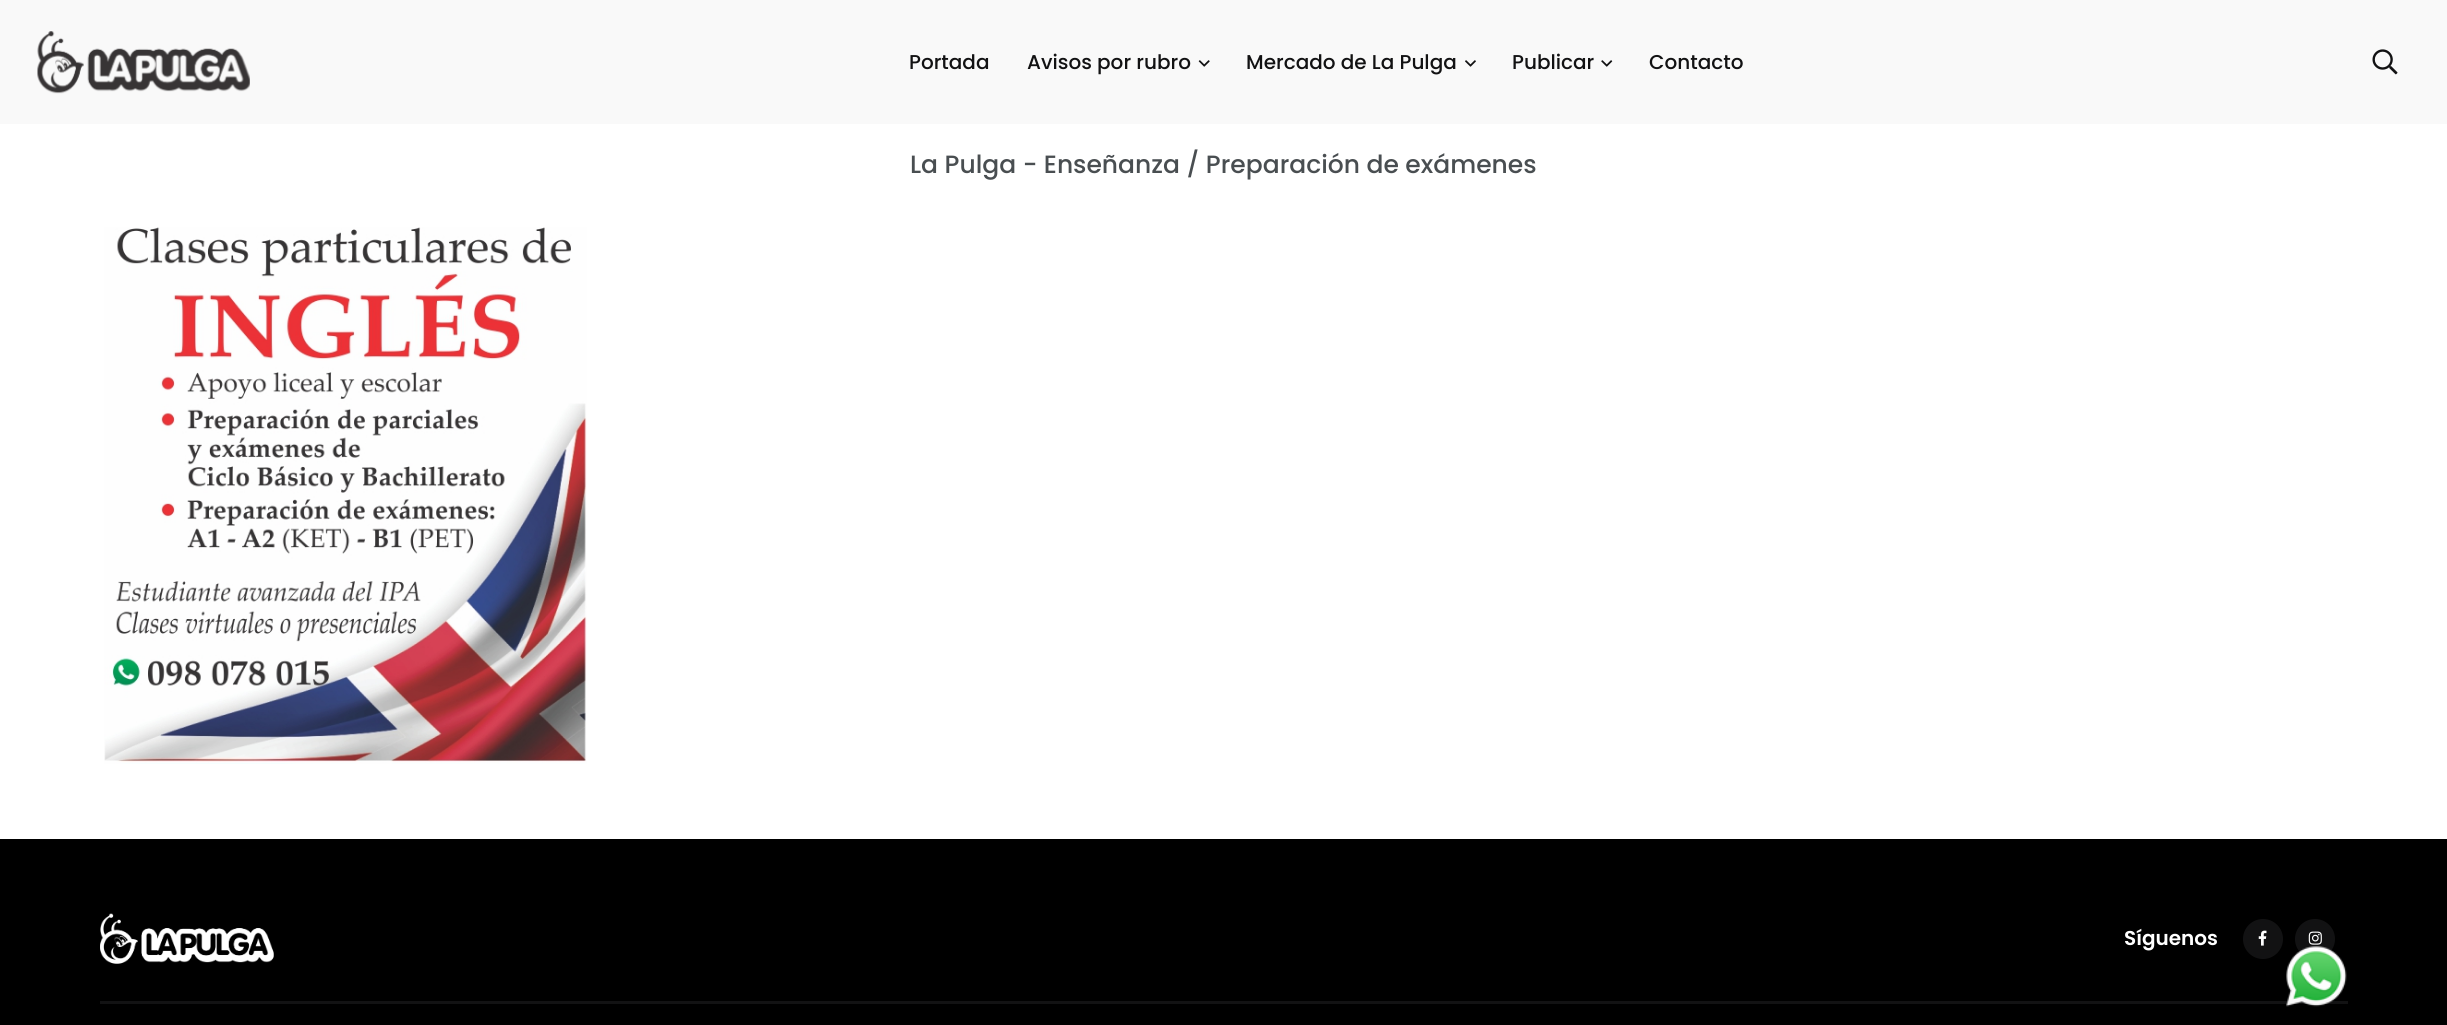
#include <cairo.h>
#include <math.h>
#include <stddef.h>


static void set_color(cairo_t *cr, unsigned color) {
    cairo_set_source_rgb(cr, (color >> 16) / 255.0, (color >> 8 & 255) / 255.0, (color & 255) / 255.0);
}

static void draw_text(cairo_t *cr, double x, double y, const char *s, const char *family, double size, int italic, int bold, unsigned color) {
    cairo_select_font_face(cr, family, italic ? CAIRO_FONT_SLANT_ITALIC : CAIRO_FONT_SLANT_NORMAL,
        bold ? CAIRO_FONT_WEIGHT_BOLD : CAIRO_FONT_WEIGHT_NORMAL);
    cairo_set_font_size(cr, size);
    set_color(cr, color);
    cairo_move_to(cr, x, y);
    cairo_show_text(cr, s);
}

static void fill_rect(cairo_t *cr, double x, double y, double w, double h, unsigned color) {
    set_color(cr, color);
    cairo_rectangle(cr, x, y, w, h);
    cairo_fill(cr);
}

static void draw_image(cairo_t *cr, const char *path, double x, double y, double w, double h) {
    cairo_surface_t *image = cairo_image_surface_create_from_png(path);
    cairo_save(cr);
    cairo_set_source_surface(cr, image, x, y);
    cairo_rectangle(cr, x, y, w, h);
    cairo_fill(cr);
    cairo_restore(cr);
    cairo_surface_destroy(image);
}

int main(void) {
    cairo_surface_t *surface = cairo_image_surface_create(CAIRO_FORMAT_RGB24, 2447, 1025);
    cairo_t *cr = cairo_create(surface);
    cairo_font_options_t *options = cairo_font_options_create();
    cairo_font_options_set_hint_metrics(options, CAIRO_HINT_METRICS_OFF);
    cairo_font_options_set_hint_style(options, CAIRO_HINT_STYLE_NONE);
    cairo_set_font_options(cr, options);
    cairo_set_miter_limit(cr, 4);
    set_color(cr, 0xFFFFFF);
    cairo_paint(cr);
    fill_rect(cr, 0, 0, 2447, 124, 0xF9F9F9);
    draw_image(cr, "assets/img1.png", 37, 31, 213, 63);
    draw_text(cr, 909, 69, "Portada", "Poppins Medium", 20, 0, 0, 0x121213);
    draw_text(cr, 1027, 69, "Avisos por rubro", "Poppins Medium", 20, 0, 0, 0x121213);
    draw_image(cr, "assets/img2.png", 1198, 60, 12, 7);
    draw_text(cr, 1246, 69, "Mercado de La Pulga", "Poppins Medium", 20, 0, 0, 0x121213);
    draw_image(cr, "assets/img3.png", 1465, 60, 11, 7);
    draw_text(cr, 1512, 69, "Publicar", "Poppins Medium", 20, 0, 0, 0x121213);
    draw_image(cr, "assets/img4.png", 1601, 60, 12, 7);
    draw_text(cr, 1649, 69, "Contacto", "Poppins Medium", 20, 0, 0, 0x121213);
    draw_image(cr, "assets/img5.png", 2372, 49, 26, 26);
    draw_text(cr, 910, 173, "La Pulga - Enseñanza / Preparación de exámenes", "Poppins Medium", 25, 0, 0, 0x494E51);
    fill_rect(cr, 0, 839, 2447, 186, 0x000000);
    set_color(cr, 0x121213);
    cairo_new_path(cr);
    cairo_arc(cr, 2315, 939, 20, 0, 2 * M_PI);
    cairo_fill(cr);
    fill_rect(cr, 100, 1001, 2248, 3, 0x121213);
    draw_image(cr, "assets/img6.png", 2286, 946, 61, 61);
    draw_image(cr, "assets/img7.png", 104, 227, 483, 537);
    draw_image(cr, "assets/img8.png", 100, 913, 174, 51);
    draw_text(cr, 2124, 945, "Síguenos", "Poppins SemiBold", 20, 0, 0, 0xFFFFFF);
    set_color(cr, 0x121213);
    cairo_new_path(cr);
    cairo_arc(cr, 2263, 939, 20, 0, 2 * M_PI);
    cairo_fill(cr);
    draw_image(cr, "assets/img9.png", 2258, 930, 9, 16);
    draw_image(cr, "assets/img10.png", 2308, 931, 14, 14);
    cairo_surface_write_to_png(surface, "output.png");
    cairo_font_options_destroy(options);
    cairo_destroy(cr);
    cairo_surface_destroy(surface);
    return 0;
}
